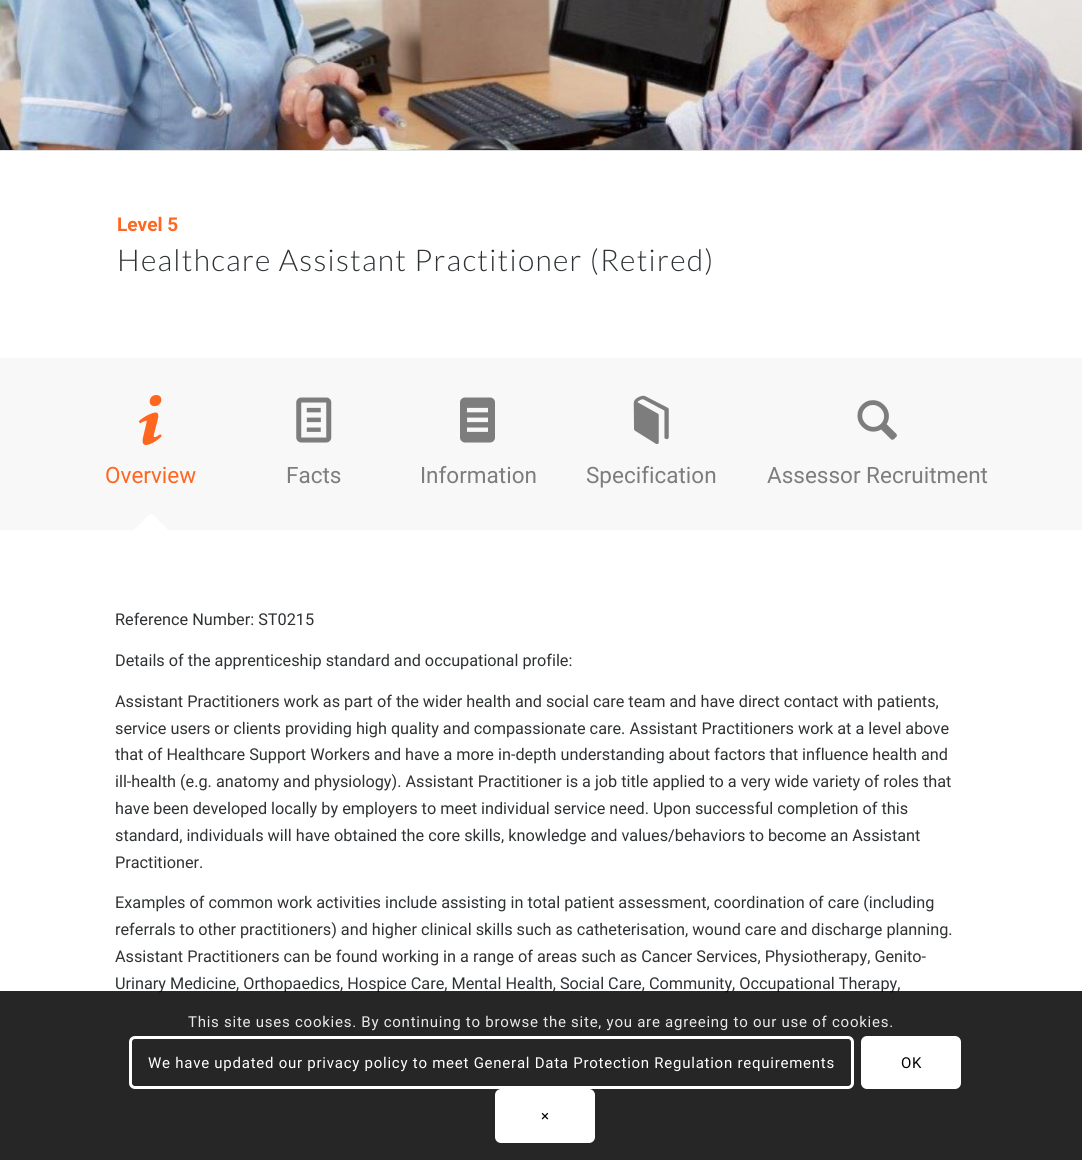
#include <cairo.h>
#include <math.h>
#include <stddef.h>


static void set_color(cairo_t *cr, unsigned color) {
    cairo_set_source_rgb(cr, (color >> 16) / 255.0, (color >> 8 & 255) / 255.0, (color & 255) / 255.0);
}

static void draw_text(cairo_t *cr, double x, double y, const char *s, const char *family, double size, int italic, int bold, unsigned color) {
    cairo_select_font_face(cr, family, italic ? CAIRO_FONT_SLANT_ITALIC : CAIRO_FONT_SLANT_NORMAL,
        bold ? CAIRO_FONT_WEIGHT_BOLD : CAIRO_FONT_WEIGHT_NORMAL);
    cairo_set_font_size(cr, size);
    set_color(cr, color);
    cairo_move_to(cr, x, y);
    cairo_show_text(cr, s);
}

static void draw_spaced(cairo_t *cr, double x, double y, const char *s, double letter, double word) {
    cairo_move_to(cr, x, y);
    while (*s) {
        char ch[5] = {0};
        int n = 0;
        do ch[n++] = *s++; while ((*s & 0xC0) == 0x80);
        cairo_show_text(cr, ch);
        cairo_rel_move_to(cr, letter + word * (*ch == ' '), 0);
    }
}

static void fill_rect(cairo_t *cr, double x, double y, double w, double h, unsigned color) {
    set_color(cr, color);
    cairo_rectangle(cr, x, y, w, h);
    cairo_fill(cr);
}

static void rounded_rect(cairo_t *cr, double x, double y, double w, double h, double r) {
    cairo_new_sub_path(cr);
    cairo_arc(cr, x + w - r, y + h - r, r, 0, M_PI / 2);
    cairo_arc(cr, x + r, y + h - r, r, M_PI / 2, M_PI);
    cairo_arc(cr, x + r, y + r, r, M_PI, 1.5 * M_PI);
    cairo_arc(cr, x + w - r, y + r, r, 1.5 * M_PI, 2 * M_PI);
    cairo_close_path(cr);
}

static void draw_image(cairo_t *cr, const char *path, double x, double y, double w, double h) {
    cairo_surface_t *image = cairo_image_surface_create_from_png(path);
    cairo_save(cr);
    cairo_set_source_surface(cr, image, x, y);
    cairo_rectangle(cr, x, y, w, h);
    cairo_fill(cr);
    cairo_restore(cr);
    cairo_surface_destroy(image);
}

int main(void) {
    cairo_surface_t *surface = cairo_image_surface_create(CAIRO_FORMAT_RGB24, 1082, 1160);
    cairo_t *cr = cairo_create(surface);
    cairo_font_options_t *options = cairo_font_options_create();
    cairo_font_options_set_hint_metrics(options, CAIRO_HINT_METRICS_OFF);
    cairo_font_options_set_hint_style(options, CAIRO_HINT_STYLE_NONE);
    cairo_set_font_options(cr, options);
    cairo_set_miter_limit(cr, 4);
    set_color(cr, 0xFFFFFF);
    cairo_paint(cr);
    draw_image(cr, "assets/img1.png", 0, 0, 1082, 150);
    fill_rect(cr, 0, 150, 1082, 1, 0xE1E1E1);
    draw_text(cr, 117, 231, "Level 5", "Roboto", 19, 0, 1, 0xFF661F);
    cairo_select_font_face(cr, "Lato Light", CAIRO_FONT_SLANT_NORMAL, CAIRO_FONT_WEIGHT_NORMAL);
    cairo_set_font_size(cr, 30);
    set_color(cr, 0x2F3234);
    draw_spaced(cr, 117, 271, "Healthcare Assistant Practitioner (Retired)", 1.25, 0);
    fill_rect(cr, 0, 358, 1082, 172, 0xF8F8F8);
    draw_image(cr, "assets/img2.png", 138, 395, 24, 50);
    draw_text(cr, 105, 483, "Overview", "Roboto", 22.5, 0, 0, 0xFF661F);
    cairo_save(cr);
    cairo_rectangle(cr, 95, 514, 113, 19);
    cairo_clip(cr);
    set_color(cr, 0xFFFFFF);
    cairo_new_path(cr);
    cairo_move_to(cr, 151, 513);
    cairo_line_to(cr, 195, 557);
    cairo_line_to(cr, 151, 602);
    cairo_line_to(cr, 107, 557);
    cairo_close_path(cr);
    cairo_fill(cr);
    cairo_restore(cr);
    draw_image(cr, "assets/img3.png", 296, 397, 36, 46);
    draw_text(cr, 286, 483, "Facts", "Roboto", 22.5, 0, 0, 0x7D7D7D);
    draw_image(cr, "assets/img4.png", 460, 397, 35, 46);
    draw_text(cr, 420, 483, "Information", "Roboto", 22.5, 0, 0, 0x7D7D7D);
    draw_image(cr, "assets/img5.png", 633, 395, 36, 49);
    draw_text(cr, 586, 483, "Specification", "Roboto", 22.5, 0, 0, 0x7D7D7D);
    draw_image(cr, "assets/img6.png", 857, 400, 40, 40);
    draw_text(cr, 767, 483, "Assessor Recruitment", "Roboto", 22.5, 0, 0, 0x7D7D7D);
    draw_text(cr, 115, 625, "Reference Number: ST0215", "Roboto", 16.25, 0, 0, 0x2F3234);
    draw_text(cr, 115, 666, "Details of the apprenticeship standard and occupational profile:", "Roboto", 16.25, 0, 0, 0x2F3234);
    draw_text(cr, 115, 707, "Assistant Practitioners work as part of the wider health and social care team and have direct contact with patients,", "Roboto", 16.25, 0, 0, 0x2F3234);
    draw_text(cr, 115, 734, "service users or clients providing high quality and compassionate care. Assistant Practitioners work at a level above", "Roboto", 16.25, 0, 0, 0x2F3234);
    draw_text(cr, 115, 760, "that of Healthcare Support Workers and have a more in-depth understanding about factors that influence health and", "Roboto", 16.25, 0, 0, 0x2F3234);
    draw_text(cr, 115, 787, "ill-health (e.g. anatomy and physiology). Assistant Practitioner is a job title applied to a very wide variety of roles that", "Roboto", 16.25, 0, 0, 0x2F3234);
    draw_text(cr, 115, 814, "have been developed locally by employers to meet individual service need. Upon successful completion of this", "Roboto", 16.25, 0, 0, 0x2F3234);
    draw_text(cr, 115, 841, "standard, individuals will have obtained the core skills, knowledge and values/behaviors to become an Assistant", "Roboto", 16.25, 0, 0, 0x2F3234);
    draw_text(cr, 115, 868, "Practitioner.", "Roboto", 16.25, 0, 0, 0x2F3234);
    draw_text(cr, 115, 908, "Examples of common work activities include assisting in total patient assessment, coordination of care (including", "Roboto", 16.25, 0, 0, 0x2F3234);
    draw_text(cr, 115, 935, "referrals to other practitioners) and higher clinical skills such as catheterisation, wound care and discharge planning.", "Roboto", 16.25, 0, 0, 0x2F3234);
    draw_text(cr, 115, 962, "Assistant Practitioners can be found working in a range of areas such as Cancer Services, Physiotherapy, Genito-", "Roboto", 16.25, 0, 0, 0x2F3234);
    draw_text(cr, 115, 989, "Urinary Medicine, Orthopaedics, Hospice Care, Mental Health, Social Care, Community, Occupational Therapy,", "Roboto", 16.25, 0, 0, 0x2F3234);
    cairo_set_source_rgba(cr, 0, 0, 0, 0.85);
    cairo_rectangle(cr, 0, 991, 1082, 169);
    cairo_fill(cr);
    cairo_set_font_size(cr, 15);
    set_color(cr, 0xE9E9E9);
    draw_spaced(cr, 188, 1027, "This site uses cookies. By continuing to browse the site, you are agreeing to our use of cookies.", 0.75, 0);
    rounded_rect(cr, 130.5, 1037.5, 722, 50, 4.5);
    set_color(cr, 0xFFFFFF);
    cairo_set_line_width(cr, 3);
    cairo_stroke(cr);
    draw_spaced(cr, 148, 1068, "We have updated our privacy policy to meet General Data Protection Regulation requirements", 0.75, 0);
    rounded_rect(cr, 861, 1036, 100, 53, 6);
    cairo_fill(cr);
    set_color(cr, 0x000000);
    draw_spaced(cr, 901, 1068, "OK", 0.75, 0);
    set_color(cr, 0xFFFFFF);
    rounded_rect(cr, 495, 1089, 100, 54, 6);
    cairo_fill(cr);
    set_color(cr, 0x000000);
    draw_spaced(cr, 541, 1121, "×", 0.75, 0);
    cairo_surface_write_to_png(surface, "output.png");
    cairo_font_options_destroy(options);
    cairo_destroy(cr);
    cairo_surface_destroy(surface);
    return 0;
}
